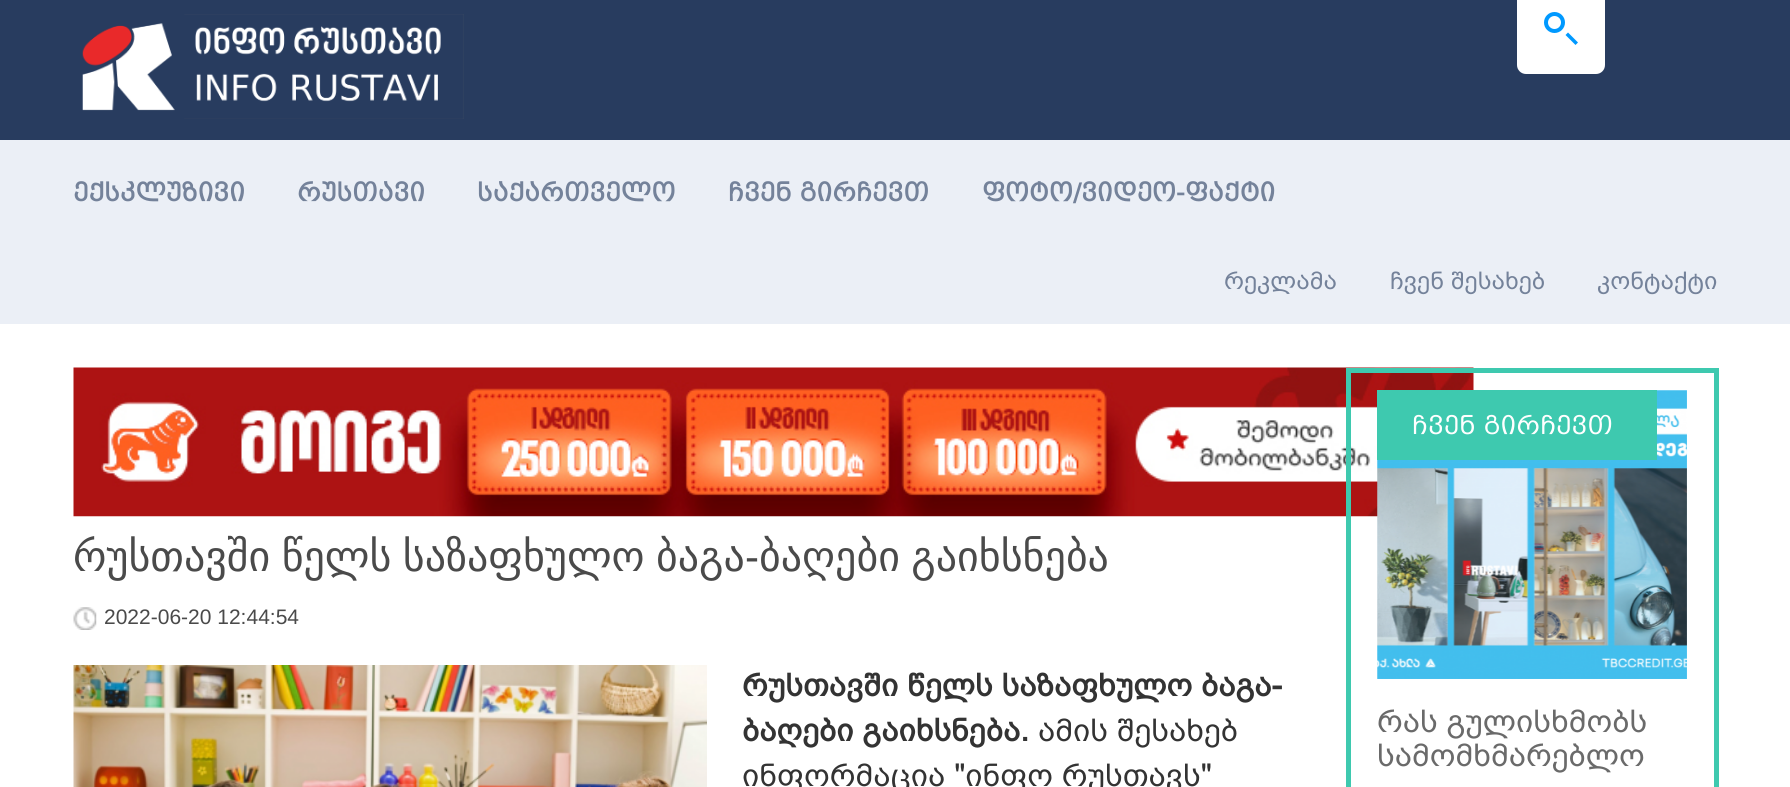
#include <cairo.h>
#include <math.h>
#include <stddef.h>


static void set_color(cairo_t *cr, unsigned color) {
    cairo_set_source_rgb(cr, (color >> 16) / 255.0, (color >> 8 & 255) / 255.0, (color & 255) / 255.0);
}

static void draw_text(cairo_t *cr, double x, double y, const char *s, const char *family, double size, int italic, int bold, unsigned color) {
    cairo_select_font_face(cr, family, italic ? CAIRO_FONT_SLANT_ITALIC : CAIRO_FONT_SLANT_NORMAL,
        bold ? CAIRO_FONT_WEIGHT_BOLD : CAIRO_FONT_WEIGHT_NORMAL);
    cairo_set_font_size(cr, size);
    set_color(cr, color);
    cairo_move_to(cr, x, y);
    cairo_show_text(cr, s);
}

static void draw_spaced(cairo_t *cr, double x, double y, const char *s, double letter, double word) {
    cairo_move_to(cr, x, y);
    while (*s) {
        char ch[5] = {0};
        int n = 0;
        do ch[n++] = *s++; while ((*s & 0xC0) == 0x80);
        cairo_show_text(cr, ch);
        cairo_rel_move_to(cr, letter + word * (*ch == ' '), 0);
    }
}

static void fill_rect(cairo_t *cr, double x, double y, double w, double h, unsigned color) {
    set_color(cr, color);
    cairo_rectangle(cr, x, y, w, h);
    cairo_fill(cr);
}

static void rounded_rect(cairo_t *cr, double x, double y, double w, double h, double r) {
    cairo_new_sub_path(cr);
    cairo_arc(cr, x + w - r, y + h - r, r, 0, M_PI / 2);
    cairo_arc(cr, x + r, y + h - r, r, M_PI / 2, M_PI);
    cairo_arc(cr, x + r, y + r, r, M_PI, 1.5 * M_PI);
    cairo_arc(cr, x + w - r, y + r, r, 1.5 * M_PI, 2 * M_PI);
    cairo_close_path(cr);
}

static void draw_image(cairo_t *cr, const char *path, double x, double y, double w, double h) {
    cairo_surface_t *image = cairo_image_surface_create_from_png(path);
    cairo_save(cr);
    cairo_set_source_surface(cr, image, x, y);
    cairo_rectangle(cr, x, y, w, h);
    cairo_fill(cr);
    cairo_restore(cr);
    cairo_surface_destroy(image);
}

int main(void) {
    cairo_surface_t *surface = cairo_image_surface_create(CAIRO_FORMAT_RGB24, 1790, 787);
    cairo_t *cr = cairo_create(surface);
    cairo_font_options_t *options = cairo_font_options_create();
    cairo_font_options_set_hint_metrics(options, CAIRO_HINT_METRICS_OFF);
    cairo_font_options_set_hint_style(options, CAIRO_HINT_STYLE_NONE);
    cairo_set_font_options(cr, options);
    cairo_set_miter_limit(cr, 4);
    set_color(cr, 0xFFFFFF);
    cairo_paint(cr);
    fill_rect(cr, 0, 0, 1790, 140, 0x283C5F);
    draw_image(cr, "assets/img1.png", 82, 14, 382, 105);
    set_color(cr, 0xFFFFFF);
    rounded_rect(cr, 1517, -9, 88, 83, 9);
    cairo_fill(cr);
    cairo_arc(cr, 1554.5, 22.5, 8.5, 0, 2 * M_PI);
    set_color(cr, 0x0099FF);
    cairo_set_line_width(cr, 4);
    cairo_stroke(cr);
    cairo_new_path(cr);
    cairo_move_to(cr, 1568, 32.5);
    cairo_line_to(cr, 1578, 42.5);
    cairo_line_to(cr, 1575.5, 45);
    cairo_line_to(cr, 1565.5, 35);
    cairo_close_path(cr);
    cairo_fill(cr);
    fill_rect(cr, 0, 140, 1790, 184, 0xEBEFF6);
    draw_text(cr, 73, 201, "ექსკლუზივი", "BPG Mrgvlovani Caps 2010", 24.5, 0, 1, 0x74829A);
    draw_text(cr, 297, 201, "რუსთავი", "BPG Mrgvlovani Caps 2010", 24.5, 0, 1, 0x74829A);
    draw_text(cr, 477, 201, "საქართველო", "BPG Mrgvlovani Caps 2010", 24.5, 0, 1, 0x74829A);
    draw_text(cr, 728, 201, "ჩვენ გირჩევთ", "BPG Mrgvlovani Caps 2010", 24.5, 0, 1, 0x74829A);
    draw_text(cr, 982, 201, "ფოტო/ვიდეო-ფაქტი", "BPG Mrgvlovani Caps 2010", 24.5, 0, 1, 0x74829A);
    draw_text(cr, 1224, 289, "რეკლამა", "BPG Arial", 24.5, 0, 0, 0x74829A);
    draw_text(cr, 1390, 289, "ჩვენ შესახებ", "BPG Arial", 24.5, 0, 0, 0x74829A);
    draw_text(cr, 1597, 289, "კონტაქტი", "BPG Arial", 24.5, 0, 0, 0x74829A);
    draw_image(cr, "assets/img2.png", 73, 367, 1401, 150);
    cairo_select_font_face(cr, "DejaVu Sans", CAIRO_FONT_SLANT_NORMAL, CAIRO_FONT_WEIGHT_NORMAL);
    cairo_set_font_size(cr, 42);
    set_color(cr, 0x4A4A4A);
    draw_spaced(cr, 73, 571, "რუსთავში წელს საზაფხულო ბაგა", 0, -2);
    draw_text(cr, 745, 571, "-", "Liberation Sans", 42, 0, 0, 0x4A4A4A);
    cairo_select_font_face(cr, "DejaVu Sans", CAIRO_FONT_SLANT_NORMAL, CAIRO_FONT_WEIGHT_NORMAL);
    draw_spaced(cr, 759, 571, "ბაღები გაიხსნება", 0, -2);
    draw_image(cr, "assets/img3.png", 73, 607, 24, 23);
    draw_text(cr, 104, 624, "2022-06-20 12:44:54", "Liberation Sans", 21, 0, 0, 0x4A4A4A);
    draw_image(cr, "assets/img4.png", 73, 665, 634, 122);
    draw_text(cr, 742, 696, "რუსთავში წელს საზაფხულო ბაგა-", "BPG Arial", 31.5, 0, 1, 0x333333);
    draw_text(cr, 742, 741, "ბაღები გაიხსნება.", "BPG Arial", 31.5, 0, 1, 0x333333);
    draw_text(cr, 1038, 741, "ამის შესახებ", "BPG Arial", 31.5, 0, 0, 0x333333);
    draw_text(cr, 742, 786, "ინფორმაცია \"ინფო რუსთავს\"", "BPG Arial", 31.5, 0, 0, 0x333333);
    cairo_rectangle(cr, 1348.5, 370.5, 368, 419);
    set_color(cr, 0x3EC9AF);
    cairo_set_line_width(cr, 5);
    cairo_stroke(cr);
    draw_image(cr, "assets/img5.png", 1377, 390, 310, 289);
    fill_rect(cr, 1377, 390, 280, 70, 0x3EC9AF);
    draw_text(cr, 1412, 434, "ჩვენ გირჩევთ", "BPG Mrgvlovani Caps 2010", 24.5, 0, 0, 0xFFFFFF);
    draw_text(cr, 1377, 732, "რას გულისხმობს", "BPG Arial", 31.5, 0, 0, 0x6A6A6A);
    draw_text(cr, 1377, 766, "სამომხმარებლო", "BPG Arial", 31.5, 0, 0, 0x6A6A6A);
    cairo_surface_write_to_png(surface, "output.png");
    cairo_font_options_destroy(options);
    cairo_destroy(cr);
    cairo_surface_destroy(surface);
    return 0;
}
